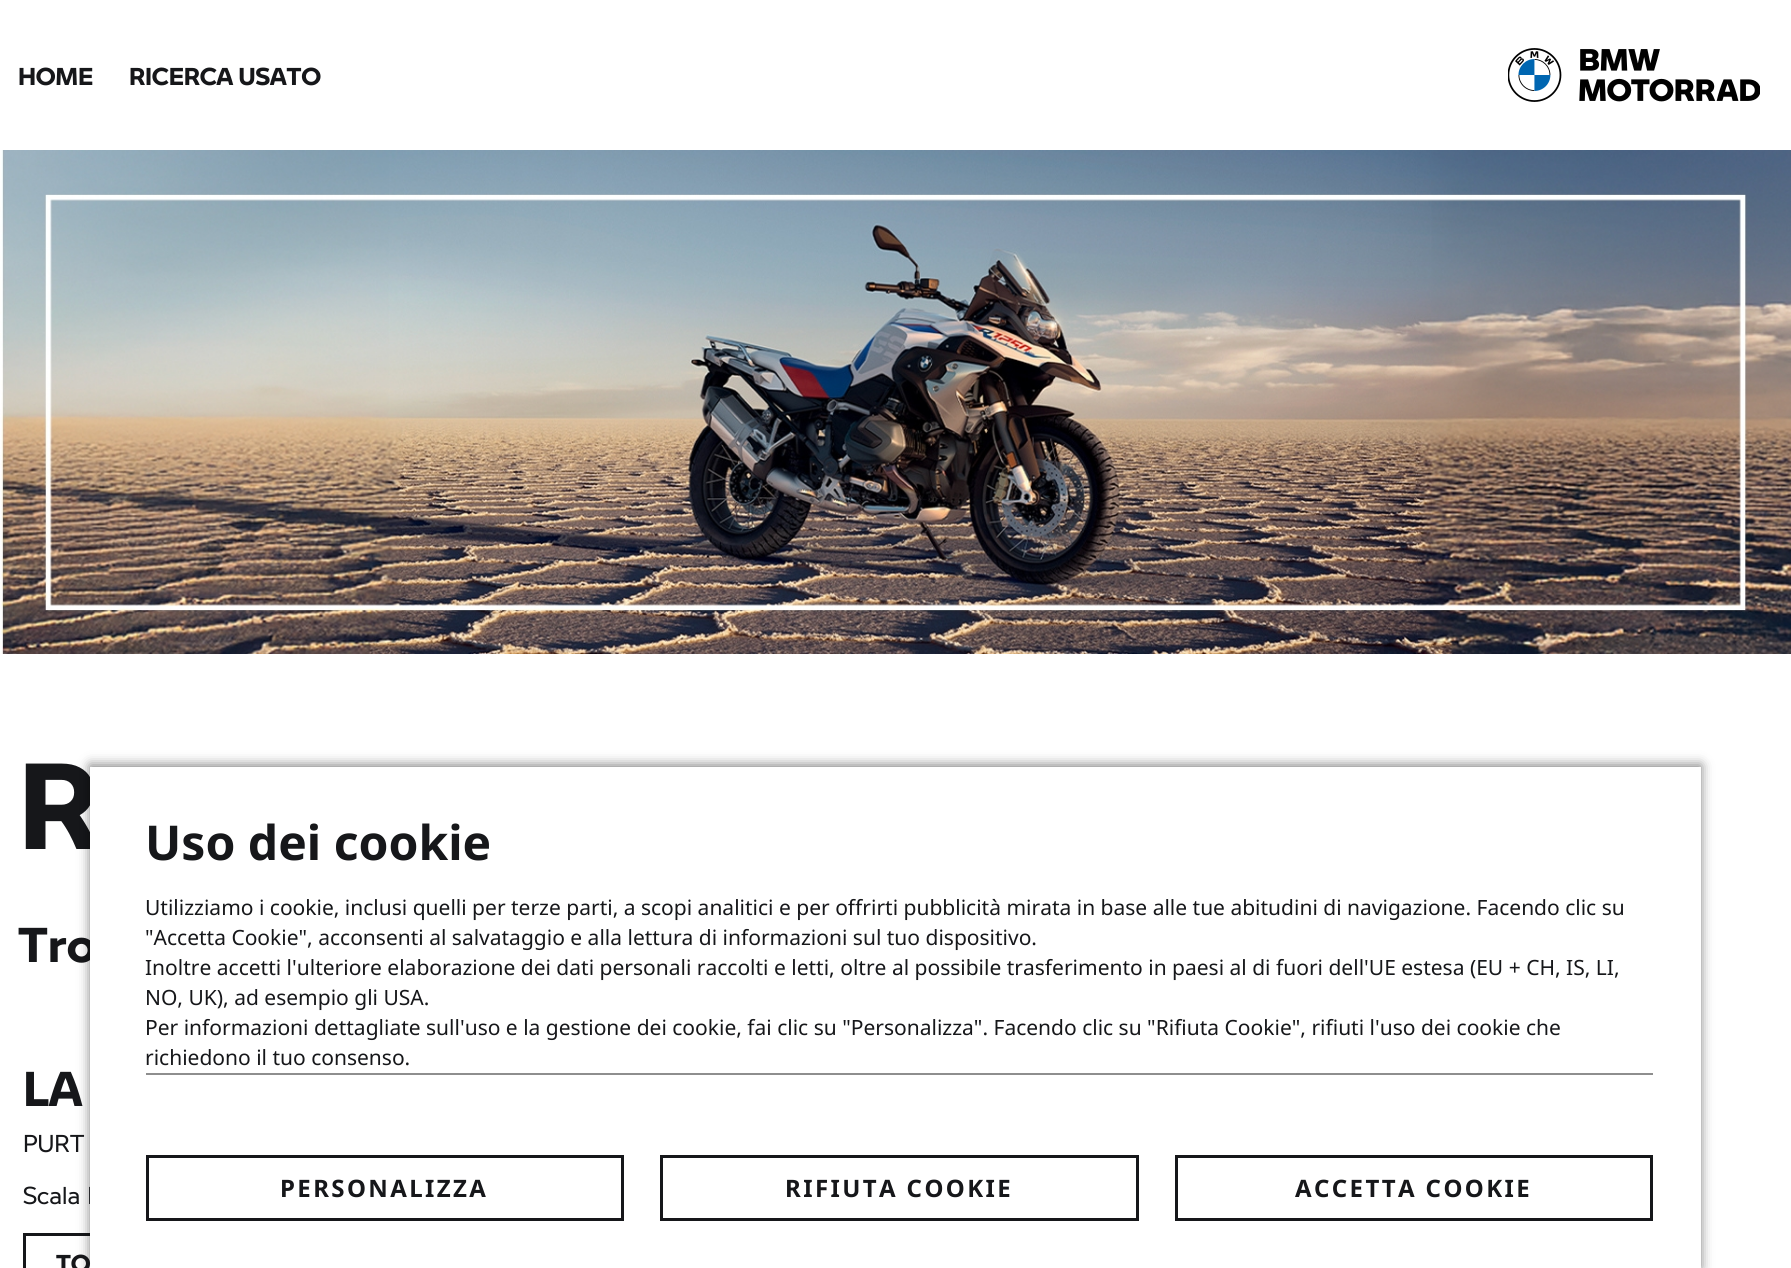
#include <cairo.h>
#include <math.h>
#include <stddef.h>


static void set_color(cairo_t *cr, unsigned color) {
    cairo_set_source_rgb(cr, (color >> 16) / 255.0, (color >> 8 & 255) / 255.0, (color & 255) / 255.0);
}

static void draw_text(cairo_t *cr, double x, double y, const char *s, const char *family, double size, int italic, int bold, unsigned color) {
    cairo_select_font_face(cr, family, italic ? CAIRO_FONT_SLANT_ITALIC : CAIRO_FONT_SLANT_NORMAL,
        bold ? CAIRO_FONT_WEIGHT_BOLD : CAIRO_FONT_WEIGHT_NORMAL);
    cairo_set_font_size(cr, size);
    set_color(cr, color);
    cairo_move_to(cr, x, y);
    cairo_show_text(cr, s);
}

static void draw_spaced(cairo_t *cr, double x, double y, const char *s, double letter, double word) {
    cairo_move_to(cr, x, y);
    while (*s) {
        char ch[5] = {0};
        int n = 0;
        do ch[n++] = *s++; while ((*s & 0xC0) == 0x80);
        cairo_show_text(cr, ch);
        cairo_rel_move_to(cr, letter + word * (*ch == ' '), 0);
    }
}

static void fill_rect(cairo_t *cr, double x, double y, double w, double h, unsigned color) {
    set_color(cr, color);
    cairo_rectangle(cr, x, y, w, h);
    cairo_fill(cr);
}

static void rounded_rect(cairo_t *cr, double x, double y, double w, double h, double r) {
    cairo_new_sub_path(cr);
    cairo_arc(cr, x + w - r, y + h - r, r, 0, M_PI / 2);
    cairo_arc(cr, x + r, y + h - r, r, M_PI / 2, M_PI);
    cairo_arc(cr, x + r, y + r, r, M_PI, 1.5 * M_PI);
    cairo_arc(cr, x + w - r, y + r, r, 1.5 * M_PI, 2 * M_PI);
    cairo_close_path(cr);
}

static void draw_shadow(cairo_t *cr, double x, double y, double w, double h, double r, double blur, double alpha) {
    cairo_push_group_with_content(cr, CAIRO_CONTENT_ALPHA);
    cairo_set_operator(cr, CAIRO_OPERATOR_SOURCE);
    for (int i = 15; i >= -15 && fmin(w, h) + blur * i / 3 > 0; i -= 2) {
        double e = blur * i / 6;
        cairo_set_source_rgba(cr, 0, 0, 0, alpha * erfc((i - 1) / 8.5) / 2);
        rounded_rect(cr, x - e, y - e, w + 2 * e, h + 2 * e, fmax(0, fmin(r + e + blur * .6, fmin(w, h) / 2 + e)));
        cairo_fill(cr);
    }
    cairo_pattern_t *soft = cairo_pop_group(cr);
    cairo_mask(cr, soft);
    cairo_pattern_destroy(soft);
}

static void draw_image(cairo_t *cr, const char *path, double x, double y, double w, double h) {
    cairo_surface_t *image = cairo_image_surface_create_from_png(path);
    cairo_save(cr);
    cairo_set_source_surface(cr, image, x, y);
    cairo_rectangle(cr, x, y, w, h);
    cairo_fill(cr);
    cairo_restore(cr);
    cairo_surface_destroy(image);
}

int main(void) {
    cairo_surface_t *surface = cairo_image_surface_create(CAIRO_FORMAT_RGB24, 1791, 1268);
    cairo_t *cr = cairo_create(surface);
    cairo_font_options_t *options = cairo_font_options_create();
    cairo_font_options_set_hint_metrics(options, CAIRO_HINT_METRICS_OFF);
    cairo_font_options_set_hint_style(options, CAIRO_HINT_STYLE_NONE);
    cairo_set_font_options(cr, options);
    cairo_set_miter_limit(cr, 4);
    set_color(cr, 0xFFFFFF);
    cairo_paint(cr);
    draw_text(cr, 18, 85, "HOME", "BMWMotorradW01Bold", 24, 0, 1, 0x16171A);
    draw_text(cr, 129, 85, "RICERCA USATO", "BMWMotorradW01Bold", 24, 0, 1, 0x16171A);
    draw_image(cr, "assets/img1.png", 1508, 48, 252, 54);
    draw_image(cr, "assets/img2.png", 0, 150, 1791, 504);
    draw_text(cr, 18, 849, "R", "BMWMotorradW01Bold", 120, 0, 1, 0x16171A);
    draw_text(cr, 18, 962, "Tro", "BMWMotorradW01Bold", 48, 0, 1, 0x16171A);
    cairo_rectangle(cr, 24.5, 1234.5, 360, 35);
    cairo_set_line_width(cr, 3);
    cairo_stroke(cr);
    set_color(cr, 0x000000);
    draw_shadow(cr, 90, 765, 1611, 503, 0, 6, 0.5);
    draw_text(cr, 23, 1204, "Scala l", "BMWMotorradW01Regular", 24, 0, 0, 0x16171A);
    fill_rect(cr, 90, 767, 1611, 501, 0xFFFFFF);
    draw_text(cr, 145, 860, "Uso dei cookie", "Noto Sans", 48, 0, 1, 0x16171A);
    draw_text(cr, 145, 915, "Utilizziamo i cookie, inclusi quelli per terze parti, a scopi analitici e per offrirti pubblicità mirata in base alle tue abitudini di navigazione. Facendo clic su", "Noto Sans", 21, 0, 0, 0x16171A);
    draw_text(cr, 145, 945, "\"Accetta Cookie\", acconsenti al salvataggio e alla lettura di informazioni sul tuo dispositivo.", "Noto Sans", 21, 0, 0, 0x16171A);
    draw_text(cr, 145, 975, "Inoltre accetti l'ulteriore elaborazione dei dati personali raccolti e letti, oltre al possibile trasferimento in paesi al di fuori dell'UE estesa (EU + CH, IS, LI,", "Noto Sans", 21, 0, 0, 0x16171A);
    draw_text(cr, 145, 1005, "NO, UK), ad esempio gli USA.", "Noto Sans", 21, 0, 0, 0x16171A);
    draw_text(cr, 145, 1035, "Per informazioni dettagliate sull'uso e la gestione dei cookie, fai clic su \"Personalizza\". Facendo clic su \"Rifiuta Cookie\", rifiuti l'uso dei cookie che", "Noto Sans", 21, 0, 0, 0x16171A);
    draw_text(cr, 145, 1065, "richiedono il tuo consenso.", "Noto Sans", 21, 0, 0, 0x16171A);
    fill_rect(cr, 146, 1073, 1507, 2, 0x8E8E8E);
    cairo_rectangle(cr, 147.5, 1156.5, 475, 63);
    set_color(cr, 0x16171A);
    cairo_stroke(cr);
    cairo_select_font_face(cr, "Noto Sans", CAIRO_FONT_SLANT_NORMAL, CAIRO_FONT_WEIGHT_BOLD);
    cairo_set_font_size(cr, 24);
    draw_spaced(cr, 280, 1197, "PERSONALIZZA", 2.4, 0);
    cairo_rectangle(cr, 661.5, 1156.5, 476, 63);
    cairo_stroke(cr);
    draw_spaced(cr, 785, 1197, "RIFIUTA COOKIE", 2.4, 0);
    cairo_rectangle(cr, 1176.5, 1156.5, 475, 63);
    cairo_stroke(cr);
    draw_spaced(cr, 1295, 1197, "ACCETTA COOKIE", 2.4, 0);
    draw_text(cr, 23, 1106, "LA", "BMWMotorradW01Bold", 48, 0, 1, 0x16171A);
    draw_text(cr, 23, 1152, "PURT", "BMWMotorradW01Regular", 24, 0, 0, 0x16171A);
    draw_text(cr, 56, 1272, "TO", "BMWMotorradW01Bold", 24, 0, 1, 0x16171A);
    cairo_surface_write_to_png(surface, "output.png");
    cairo_font_options_destroy(options);
    cairo_destroy(cr);
    cairo_surface_destroy(surface);
    return 0;
}
